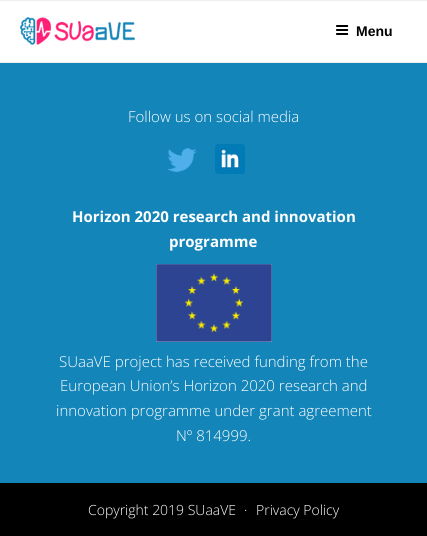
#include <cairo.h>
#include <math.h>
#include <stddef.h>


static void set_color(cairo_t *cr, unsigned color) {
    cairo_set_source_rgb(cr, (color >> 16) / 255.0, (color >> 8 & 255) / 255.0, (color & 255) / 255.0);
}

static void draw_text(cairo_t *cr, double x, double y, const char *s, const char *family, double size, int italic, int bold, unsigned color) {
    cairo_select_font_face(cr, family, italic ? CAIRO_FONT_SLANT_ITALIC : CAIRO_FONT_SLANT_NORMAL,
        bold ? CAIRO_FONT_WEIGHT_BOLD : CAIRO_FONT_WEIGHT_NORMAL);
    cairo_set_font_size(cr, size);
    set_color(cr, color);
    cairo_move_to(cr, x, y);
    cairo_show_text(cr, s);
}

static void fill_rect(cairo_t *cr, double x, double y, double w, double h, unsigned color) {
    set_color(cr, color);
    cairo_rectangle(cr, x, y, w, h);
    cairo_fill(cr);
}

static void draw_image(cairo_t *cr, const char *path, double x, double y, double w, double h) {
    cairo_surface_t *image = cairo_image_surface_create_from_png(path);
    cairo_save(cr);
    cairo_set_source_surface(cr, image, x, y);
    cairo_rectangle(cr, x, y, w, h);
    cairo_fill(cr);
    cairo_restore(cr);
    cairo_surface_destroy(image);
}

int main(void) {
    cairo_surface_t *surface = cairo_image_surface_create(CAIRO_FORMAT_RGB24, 427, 536);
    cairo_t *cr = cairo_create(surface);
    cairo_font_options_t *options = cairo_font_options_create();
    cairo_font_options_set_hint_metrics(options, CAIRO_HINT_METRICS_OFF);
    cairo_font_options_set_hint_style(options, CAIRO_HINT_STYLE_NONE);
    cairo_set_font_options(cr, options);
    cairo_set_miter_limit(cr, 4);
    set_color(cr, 0x1385B9);
    cairo_paint(cr);
    fill_rect(cr, 0, 1, 427, 61, 0xFFFFFF);
    fill_rect(cr, 0, 0, 427, 1, 0xEEEEEE);
    fill_rect(cr, 0, 62, 427, 1, 0xEEEEEE);
    draw_image(cr, "assets/img1.png", 20, 17, 115, 28);
    draw_image(cr, "assets/img2.png", 336, 25, 13, 10);
    draw_text(cr, 356, 36, "Menu", "Liberation Sans", 14, 0, 1, 0x000000);
    draw_text(cr, 128, 122, "Follow us on social media", "Open Sans Light", 15, 0, 0, 0xFFFFFF);
    draw_image(cr, "assets/img3.png", 167, 148, 30, 24);
    draw_image(cr, "assets/img4.png", 215, 144, 30, 30);
    draw_text(cr, 72, 222, "Horizon 2020 research and innovation", "Open Sans", 15, 0, 1, 0xFFFFFF);
    draw_text(cr, 169, 247, "programme", "Open Sans", 15, 0, 1, 0xFFFFFF);
    draw_image(cr, "assets/img5.png", 156, 264, 116, 78);
    draw_text(cr, 59, 367, "SUaaVE project has received funding from the", "Open Sans Light", 15, 0, 0, 0xFFFFFF);
    draw_text(cr, 60, 391, "European Union’s Horizon 2020 research and", "Open Sans Light", 15, 0, 0, 0xFFFFFF);
    draw_text(cr, 56, 416, "innovation programme under grant agreement", "Open Sans Light", 15, 0, 0, 0xFFFFFF);
    draw_text(cr, 176, 441, "Nº 814999.", "Open Sans Light", 15, 0, 0, 0xFFFFFF);
    fill_rect(cr, 0, 483, 427, 53, 0x000000);
    draw_text(cr, 88, 515, "Copyright 2019 SUaaVE", "Open Sans Light", 14, 0, 0, 0xFFFFFF);
    draw_text(cr, 244, 515, "·", "Open Sans Light", 14, 0, 0, 0xFFFFFF);
    draw_text(cr, 256, 515, "Privacy Policy", "Open Sans Light", 14, 0, 0, 0xFFFFFF);
    cairo_surface_write_to_png(surface, "output.png");
    cairo_font_options_destroy(options);
    cairo_destroy(cr);
    cairo_surface_destroy(surface);
    return 0;
}
